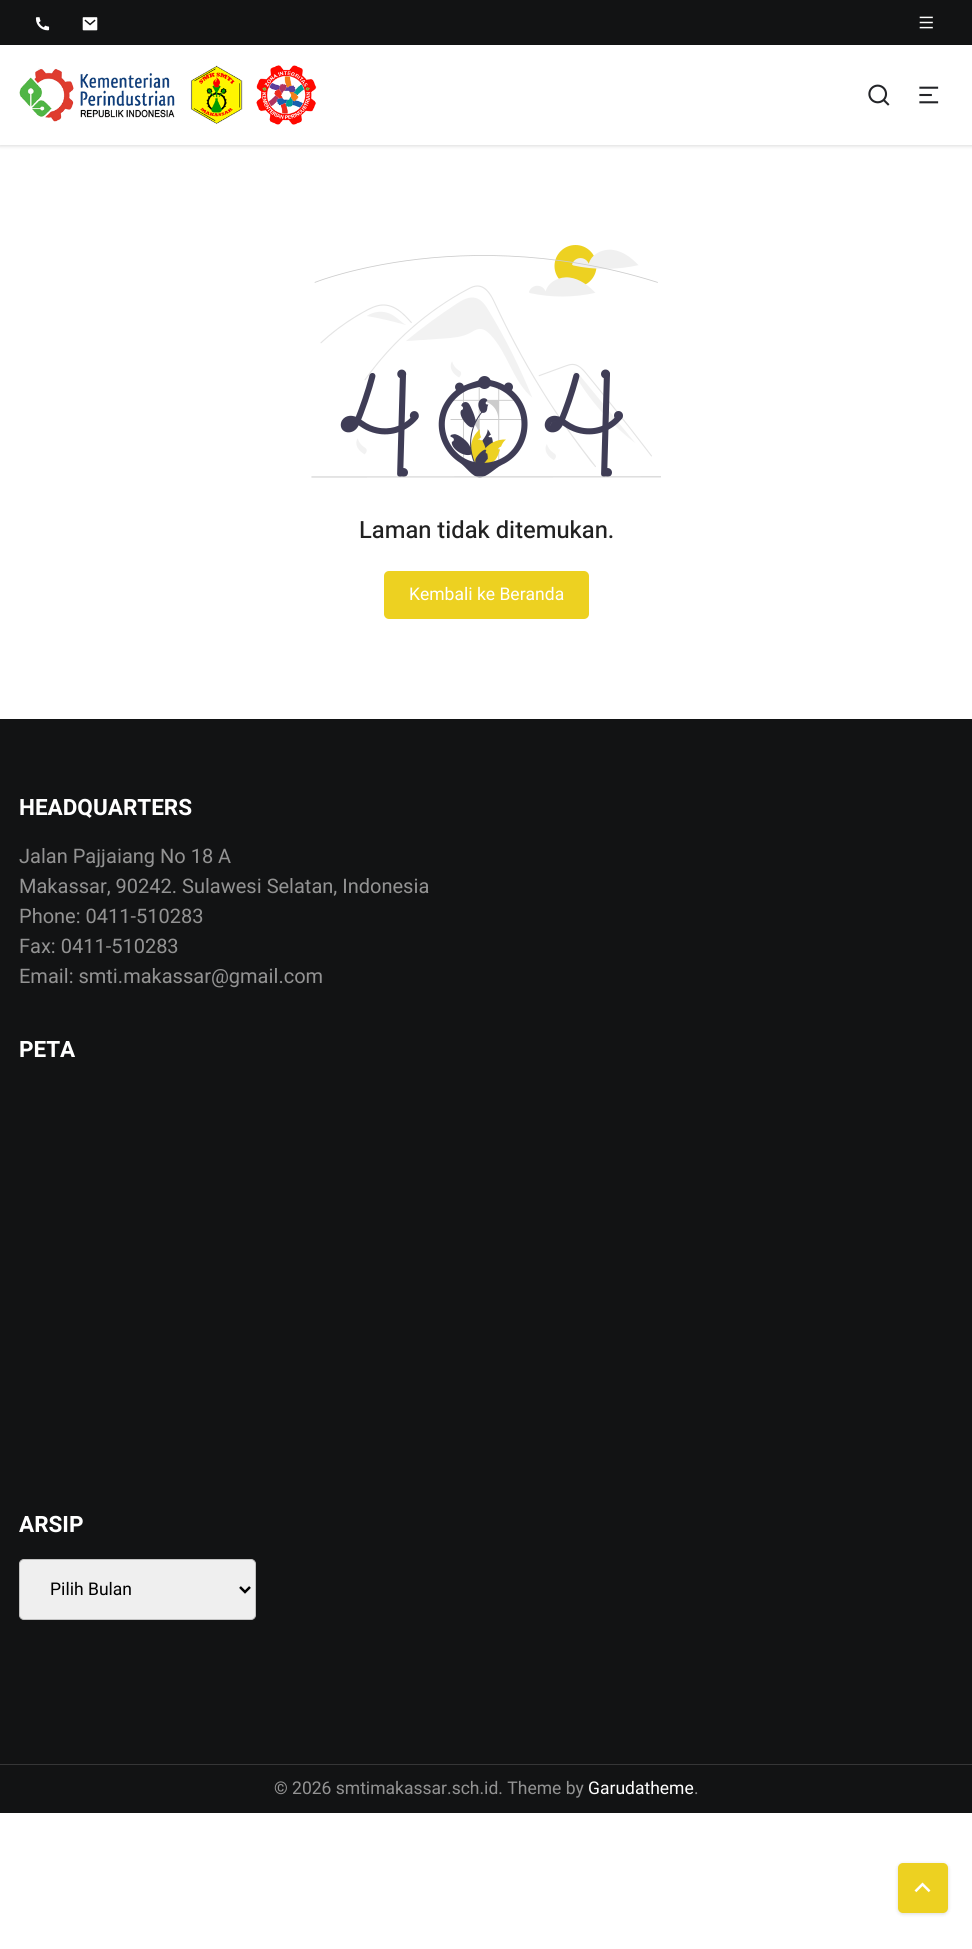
#include <cairo.h>
#include <math.h>
#include <stddef.h>


static void set_color(cairo_t *cr, unsigned color) {
    cairo_set_source_rgb(cr, (color >> 16) / 255.0, (color >> 8 & 255) / 255.0, (color & 255) / 255.0);
}

static void draw_text(cairo_t *cr, double x, double y, const char *s, const char *family, double size, int italic, int bold, unsigned color) {
    cairo_select_font_face(cr, family, italic ? CAIRO_FONT_SLANT_ITALIC : CAIRO_FONT_SLANT_NORMAL,
        bold ? CAIRO_FONT_WEIGHT_BOLD : CAIRO_FONT_WEIGHT_NORMAL);
    cairo_set_font_size(cr, size);
    set_color(cr, color);
    cairo_move_to(cr, x, y);
    cairo_show_text(cr, s);
}

static void fill_rect(cairo_t *cr, double x, double y, double w, double h, unsigned color) {
    set_color(cr, color);
    cairo_rectangle(cr, x, y, w, h);
    cairo_fill(cr);
}

static void rounded_rect(cairo_t *cr, double x, double y, double w, double h, double r) {
    cairo_new_sub_path(cr);
    cairo_arc(cr, x + w - r, y + h - r, r, 0, M_PI / 2);
    cairo_arc(cr, x + r, y + h - r, r, M_PI / 2, M_PI);
    cairo_arc(cr, x + r, y + r, r, M_PI, 1.5 * M_PI);
    cairo_arc(cr, x + w - r, y + r, r, 1.5 * M_PI, 2 * M_PI);
    cairo_close_path(cr);
}

static void draw_shadow(cairo_t *cr, double x, double y, double w, double h, double r, double blur, double alpha) {
    cairo_push_group_with_content(cr, CAIRO_CONTENT_ALPHA);
    cairo_set_operator(cr, CAIRO_OPERATOR_SOURCE);
    for (int i = 15; i >= -15 && fmin(w, h) + blur * i / 3 > 0; i -= 2) {
        double e = blur * i / 6;
        cairo_set_source_rgba(cr, 0, 0, 0, alpha * erfc((i - 1) / 8.5) / 2);
        rounded_rect(cr, x - e, y - e, w + 2 * e, h + 2 * e, fmax(0, fmin(r + e + blur * .6, fmin(w, h) / 2 + e)));
        cairo_fill(cr);
    }
    cairo_pattern_t *soft = cairo_pop_group(cr);
    cairo_mask(cr, soft);
    cairo_pattern_destroy(soft);
}

static void draw_image(cairo_t *cr, const char *path, double x, double y, double w, double h) {
    cairo_surface_t *image = cairo_image_surface_create_from_png(path);
    cairo_save(cr);
    cairo_set_source_surface(cr, image, x, y);
    cairo_rectangle(cr, x, y, w, h);
    cairo_fill(cr);
    cairo_restore(cr);
    cairo_surface_destroy(image);
}

int main(void) {
    cairo_surface_t *surface = cairo_image_surface_create(CAIRO_FORMAT_RGB24, 972, 1949);
    cairo_t *cr = cairo_create(surface);
    cairo_font_options_t *options = cairo_font_options_create();
    cairo_font_options_set_hint_metrics(options, CAIRO_HINT_METRICS_OFF);
    cairo_font_options_set_hint_style(options, CAIRO_HINT_STYLE_NONE);
    cairo_set_font_options(cr, options);
    cairo_set_miter_limit(cr, 4);
    set_color(cr, 0xFFFFFF);
    cairo_paint(cr);
    fill_rect(cr, 0, 0, 972, 45, 0x121314);
    draw_image(cr, "assets/img1.png", 35, 17, 15, 14);
    draw_image(cr, "assets/img2.png", 82, 17, 16, 14);
    draw_image(cr, "assets/img3.png", 919, 16, 14, 13);
    cairo_save(cr);
    cairo_set_fill_rule(cr, CAIRO_FILL_RULE_EVEN_ODD);
    cairo_new_path(cr);
    cairo_move_to(cr, 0, 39);
    cairo_line_to(cr, 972, 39);
    cairo_line_to(cr, 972, 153);
    cairo_line_to(cr, 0, 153);
    cairo_close_path(cr);
    cairo_move_to(cr, 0, 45);
    cairo_line_to(cr, 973, 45);
    cairo_line_to(cr, 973, 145);
    cairo_line_to(cr, 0, 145);
    cairo_close_path(cr);
    cairo_clip(cr);
    set_color(cr, 0x000000);
    draw_shadow(cr, 0, 46, 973, 100, 0, 2, 0.15);
    cairo_restore(cr);
    draw_image(cr, "assets/img4.png", 19, 65, 298, 60);
    draw_image(cr, "assets/img5.png", 868, 84, 22, 22);
    draw_image(cr, "assets/img6.png", 919, 86, 20, 18);
    draw_image(cr, "assets/img7.png", 311, 245, 350, 233);
    draw_text(cr, 359, 538, "Laman tidak ditemukan.", "Heebo Medium", 23.75, 0, 0, 0x212121);
    set_color(cr, 0xEDD121);
    rounded_rect(cr, 384, 571, 205, 48, 5);
    cairo_fill(cr);
    draw_text(cr, 409, 600, "Kembali ke Beranda", "Heebo", 17.5, 0, 0, 0xFFFFFF);
    fill_rect(cr, 0, 719, 972, 1094, 0x121314);
    draw_text(cr, 19, 815, "HEADQUARTERS", "Heebo", 22.5, 0, 1, 0xFFFFFF);
    draw_text(cr, 19, 863, "Jalan Pajjaiang No 18 A", "Heebo", 20, 0, 0, 0x939393);
    draw_text(cr, 19, 893, "Makassar, 90242. Sulawesi Selatan, Indonesia", "Heebo", 20, 0, 0, 0x939393);
    draw_text(cr, 19, 923, "Phone: 0411-510283", "Heebo", 20, 0, 0, 0x939393);
    draw_text(cr, 19, 953, "Fax: 0411-510283", "Heebo", 20, 0, 0, 0x939393);
    draw_text(cr, 19, 983, "Email: smti.makassar@gmail.com", "Heebo", 20, 0, 0, 0x939393);
    draw_text(cr, 19, 1057, "PETA", "Heebo", 22.5, 0, 1, 0xFFFFFF);
    draw_text(cr, 19, 1532, "ARSIP", "Heebo", 22.5, 0, 1, 0xFFFFFF);
    set_color(cr, 0xEFEFEF);
    rounded_rect(cr, 19.5, 1559.5, 236, 60, 4.5);
    cairo_fill_preserve(cr);
    set_color(cr, 0xC2C2C2);
    cairo_set_line_width(cr, 1);
    cairo_stroke(cr);
    cairo_new_path(cr);
    cairo_move_to(cr, 240, 1587);
    cairo_line_to(cr, 245, 1592);
    cairo_line_to(cr, 250, 1587);
    set_color(cr, 0x000000);
    cairo_set_line_width(cr, 2.5);
    cairo_stroke(cr);
    draw_text(cr, 50, 1595, "Pilih Bulan", "Heebo", 17.5, 0, 0, 0x000000);
    fill_rect(cr, 0, 1764, 972, 1, 0x363637);
    draw_text(cr, 274, 1794, "© 2026 smtimakassar.sch.id. Theme by", "Heebo", 17.5, 0, 0, 0x939393);
    draw_text(cr, 588, 1794, "Garudatheme", "Heebo", 17.5, 0, 0, 0xFFFFFF);
    draw_text(cr, 694, 1794, ".", "Heebo", 17.5, 0, 0, 0x939393);
    set_color(cr, 0x000000);
    draw_shadow(cr, 898, 1864, 50, 50, 5, 2, 0.15);
    set_color(cr, 0xEDD121);
    rounded_rect(cr, 898, 1863, 50, 50, 5);
    cairo_fill(cr);
    draw_image(cr, "assets/img8.png", 914, 1882, 17, 11);
    cairo_surface_write_to_png(surface, "output.png");
    cairo_font_options_destroy(options);
    cairo_destroy(cr);
    cairo_surface_destroy(surface);
    return 0;
}
